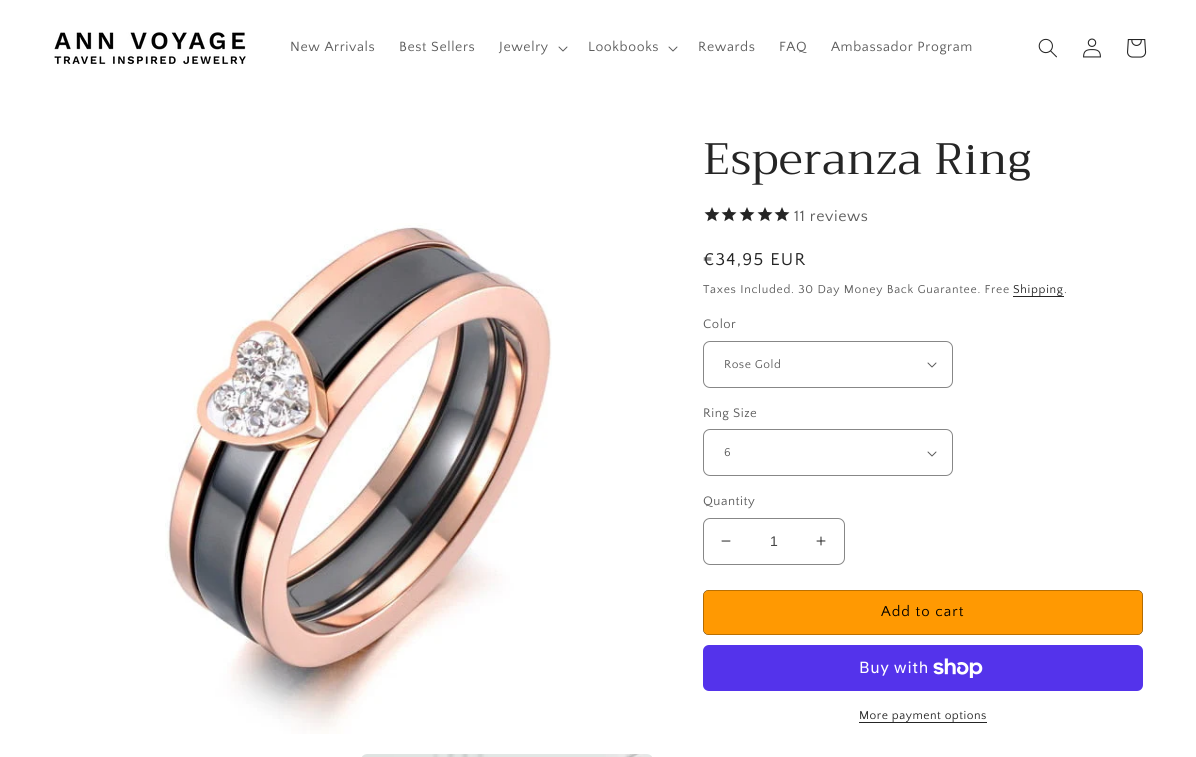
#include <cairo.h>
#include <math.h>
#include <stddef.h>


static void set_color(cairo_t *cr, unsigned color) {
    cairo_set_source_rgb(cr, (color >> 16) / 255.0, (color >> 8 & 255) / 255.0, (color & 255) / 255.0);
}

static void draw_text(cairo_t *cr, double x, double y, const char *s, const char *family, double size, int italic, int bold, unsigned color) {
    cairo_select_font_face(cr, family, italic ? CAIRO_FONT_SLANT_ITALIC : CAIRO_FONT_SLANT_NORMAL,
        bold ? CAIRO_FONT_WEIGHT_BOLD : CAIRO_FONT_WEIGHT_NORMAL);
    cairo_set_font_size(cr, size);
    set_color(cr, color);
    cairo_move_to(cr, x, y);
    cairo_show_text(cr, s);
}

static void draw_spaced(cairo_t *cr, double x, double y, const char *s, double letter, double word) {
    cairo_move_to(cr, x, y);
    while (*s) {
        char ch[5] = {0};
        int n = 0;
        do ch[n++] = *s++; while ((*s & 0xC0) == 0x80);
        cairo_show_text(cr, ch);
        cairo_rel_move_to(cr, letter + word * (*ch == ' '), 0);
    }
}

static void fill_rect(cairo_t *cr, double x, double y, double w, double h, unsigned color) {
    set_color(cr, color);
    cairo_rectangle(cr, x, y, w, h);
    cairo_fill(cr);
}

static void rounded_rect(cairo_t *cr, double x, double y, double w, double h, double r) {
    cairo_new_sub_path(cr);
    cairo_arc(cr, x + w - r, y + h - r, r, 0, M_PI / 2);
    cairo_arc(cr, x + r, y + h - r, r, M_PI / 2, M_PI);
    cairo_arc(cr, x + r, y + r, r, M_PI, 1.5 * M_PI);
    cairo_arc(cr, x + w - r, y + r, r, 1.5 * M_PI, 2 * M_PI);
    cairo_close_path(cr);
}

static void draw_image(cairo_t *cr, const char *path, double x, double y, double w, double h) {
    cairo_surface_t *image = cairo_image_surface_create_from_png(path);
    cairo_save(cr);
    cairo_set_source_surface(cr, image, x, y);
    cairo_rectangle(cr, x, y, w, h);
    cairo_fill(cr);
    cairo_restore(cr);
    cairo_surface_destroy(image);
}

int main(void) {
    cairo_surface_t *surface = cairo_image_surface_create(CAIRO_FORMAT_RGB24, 1196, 757);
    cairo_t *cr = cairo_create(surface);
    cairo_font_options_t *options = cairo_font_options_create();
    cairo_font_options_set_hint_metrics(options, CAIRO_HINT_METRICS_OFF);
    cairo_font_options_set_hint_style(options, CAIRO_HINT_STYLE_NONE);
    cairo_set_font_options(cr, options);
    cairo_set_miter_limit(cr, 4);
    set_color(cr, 0xFFFFFF);
    cairo_paint(cr);
    draw_image(cr, "assets/img1.png", 53, 32, 193, 34);
    cairo_select_font_face(cr, "Quattrocento Sans", CAIRO_FONT_SLANT_NORMAL, CAIRO_FONT_WEIGHT_NORMAL);
    cairo_set_font_size(cr, 14);
    set_color(cr, 0x5C5C5C);
    draw_spaced(cr, 290, 51, "New Arrivals", 0.6, 0);
    draw_spaced(cr, 399, 51, "Best Sellers", 0.6, 0);
    draw_spaced(cr, 499, 51, "Jewelry", 0.6, 0);
    draw_image(cr, "assets/img2.png", 558, 46, 10, 6);
    draw_spaced(cr, 588, 51, "Lookbooks", 0.6, 0);
    draw_image(cr, "assets/img2.png", 668, 46, 10, 6);
    draw_spaced(cr, 698, 51, "Rewards", 0.6, 0);
    draw_spaced(cr, 779, 51, "FAQ", 0.6, 0);
    draw_spaced(cr, 831, 51, "Ambassador Program", 0.6, 0);
    draw_image(cr, "assets/img3.png", 1038, 38, 19, 20);
    draw_image(cr, "assets/img4.png", 1083, 38, 18, 20);
    draw_image(cr, "assets/img5.png", 1127, 39, 20, 19);
    draw_image(cr, "assets/img6.png", 165, 223, 387, 511);
    draw_image(cr, "assets/img7.png", 362, 754, 290, 3);
    cairo_select_font_face(cr, "Trirong", CAIRO_FONT_SLANT_NORMAL, CAIRO_FONT_WEIGHT_NORMAL);
    cairo_set_font_size(cr, 44);
    set_color(cr, 0x252525);
    draw_spaced(cr, 703, 174, "Esperanza Ring", 0.7, 0);
    draw_image(cr, "assets/img8.png", 704, 207, 16, 15);
    draw_image(cr, "assets/img8.png", 721, 207, 16, 15);
    draw_image(cr, "assets/img8.png", 739, 207, 16, 15);
    draw_image(cr, "assets/img8.png", 757, 207, 16, 15);
    draw_image(cr, "assets/img8.png", 774, 207, 16, 15);
    cairo_select_font_face(cr, "Quattrocento Sans", CAIRO_FONT_SLANT_NORMAL, CAIRO_FONT_WEIGHT_NORMAL);
    cairo_set_font_size(cr, 16);
    set_color(cr, 0x5C5C5C);
    draw_spaced(cr, 794, 221, "11 reviews", 0.6, 0);
    cairo_set_font_size(cr, 18);
    set_color(cr, 0x252525);
    draw_spaced(cr, 703, 265, "€34,95 EUR", 1.25, 0);
    cairo_set_font_size(cr, 12);
    set_color(cr, 0x5C5C5C);
    draw_spaced(cr, 703, 293, "Taxes Included. 30 Day Money Back Guarantee. Free", 0.7, 0);
    fill_rect(cr, 1013, 296, 51, 1, 0x262626);
    set_color(cr, 0x252525);
    draw_spaced(cr, 1013, 293, "Shipping", 0.7, 0);
    set_color(cr, 0x5C5C5C);
    draw_spaced(cr, 1064, 293, ".", 0.7, 0);
    cairo_set_font_size(cr, 13);
    draw_spaced(cr, 703, 328, "Color", 0.5, 0);
    draw_image(cr, "assets/img2.png", 927, 362, 10, 6);
    rounded_rect(cr, 703.5, 341.5, 249, 46, 6.5);
    set_color(cr, 0x878787);
    cairo_set_line_width(cr, 1);
    cairo_stroke(cr);
    cairo_set_font_size(cr, 12);
    set_color(cr, 0x5C5C5C);
    draw_spaced(cr, 724, 368, "Rose Gold", 0.5, 0);
    cairo_set_font_size(cr, 13);
    draw_spaced(cr, 703, 417, "Ring Size", 0.5, 0);
    draw_image(cr, "assets/img2.png", 927, 451, 10, 6);
    rounded_rect(cr, 703.5, 429.5, 249, 46, 6.5);
    set_color(cr, 0x878787);
    cairo_stroke(cr);
    cairo_set_font_size(cr, 12);
    set_color(cr, 0x5C5C5C);
    draw_spaced(cr, 724, 456, "6", 0.5, 0);
    cairo_set_font_size(cr, 13);
    draw_spaced(cr, 703, 505, "Quantity", 0.5, 0);
    draw_image(cr, "assets/img9.png", 721, 540, 10, 2);
    draw_image(cr, "assets/img10.png", 816, 536, 10, 10);
    rounded_rect(cr, 703.5, 518.5, 141, 46, 6.5);
    set_color(cr, 0x878787);
    cairo_stroke(cr);
    draw_text(cr, 770, 546, "1", "Liberation Sans", 14, 0, 0, 0x464646);
    set_color(cr, 0xFF9902);
    rounded_rect(cr, 703, 590, 440, 45, 6);
    cairo_fill(cr);
    rounded_rect(cr, 703.15, 590.15, 439.7, 44.7, 5.85);
    set_color(cr, 0x000000);
    cairo_set_line_width(cr, 0.3);
    cairo_stroke(cr);
    cairo_select_font_face(cr, "Quattrocento Sans", CAIRO_FONT_SLANT_NORMAL, CAIRO_FONT_WEIGHT_NORMAL);
    cairo_set_font_size(cr, 15);
    draw_spaced(cr, 881, 616, "Add to cart", 1, 0);
    set_color(cr, 0x5433EB);
    rounded_rect(cr, 703, 645, 440, 46, 6);
    cairo_fill(cr);
    cairo_select_font_face(cr, "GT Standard", CAIRO_FONT_SLANT_NORMAL, CAIRO_FONT_WEIGHT_NORMAL);
    cairo_set_font_size(cr, 16);
    set_color(cr, 0xFFFFFF);
    draw_spaced(cr, 859, 673, "Buy with", 0.6, 0);
    draw_image(cr, "assets/img11.png", 933, 658, 50, 20);
    fill_rect(cr, 859, 722, 128, 1, 0x252525);
    cairo_select_font_face(cr, "Quattrocento Sans", CAIRO_FONT_SLANT_NORMAL, CAIRO_FONT_WEIGHT_NORMAL);
    cairo_set_font_size(cr, 12);
    draw_spaced(cr, 859, 719, "More payment options", 0.5, 0);
    cairo_surface_write_to_png(surface, "output.png");
    cairo_font_options_destroy(options);
    cairo_destroy(cr);
    cairo_surface_destroy(surface);
    return 0;
}
